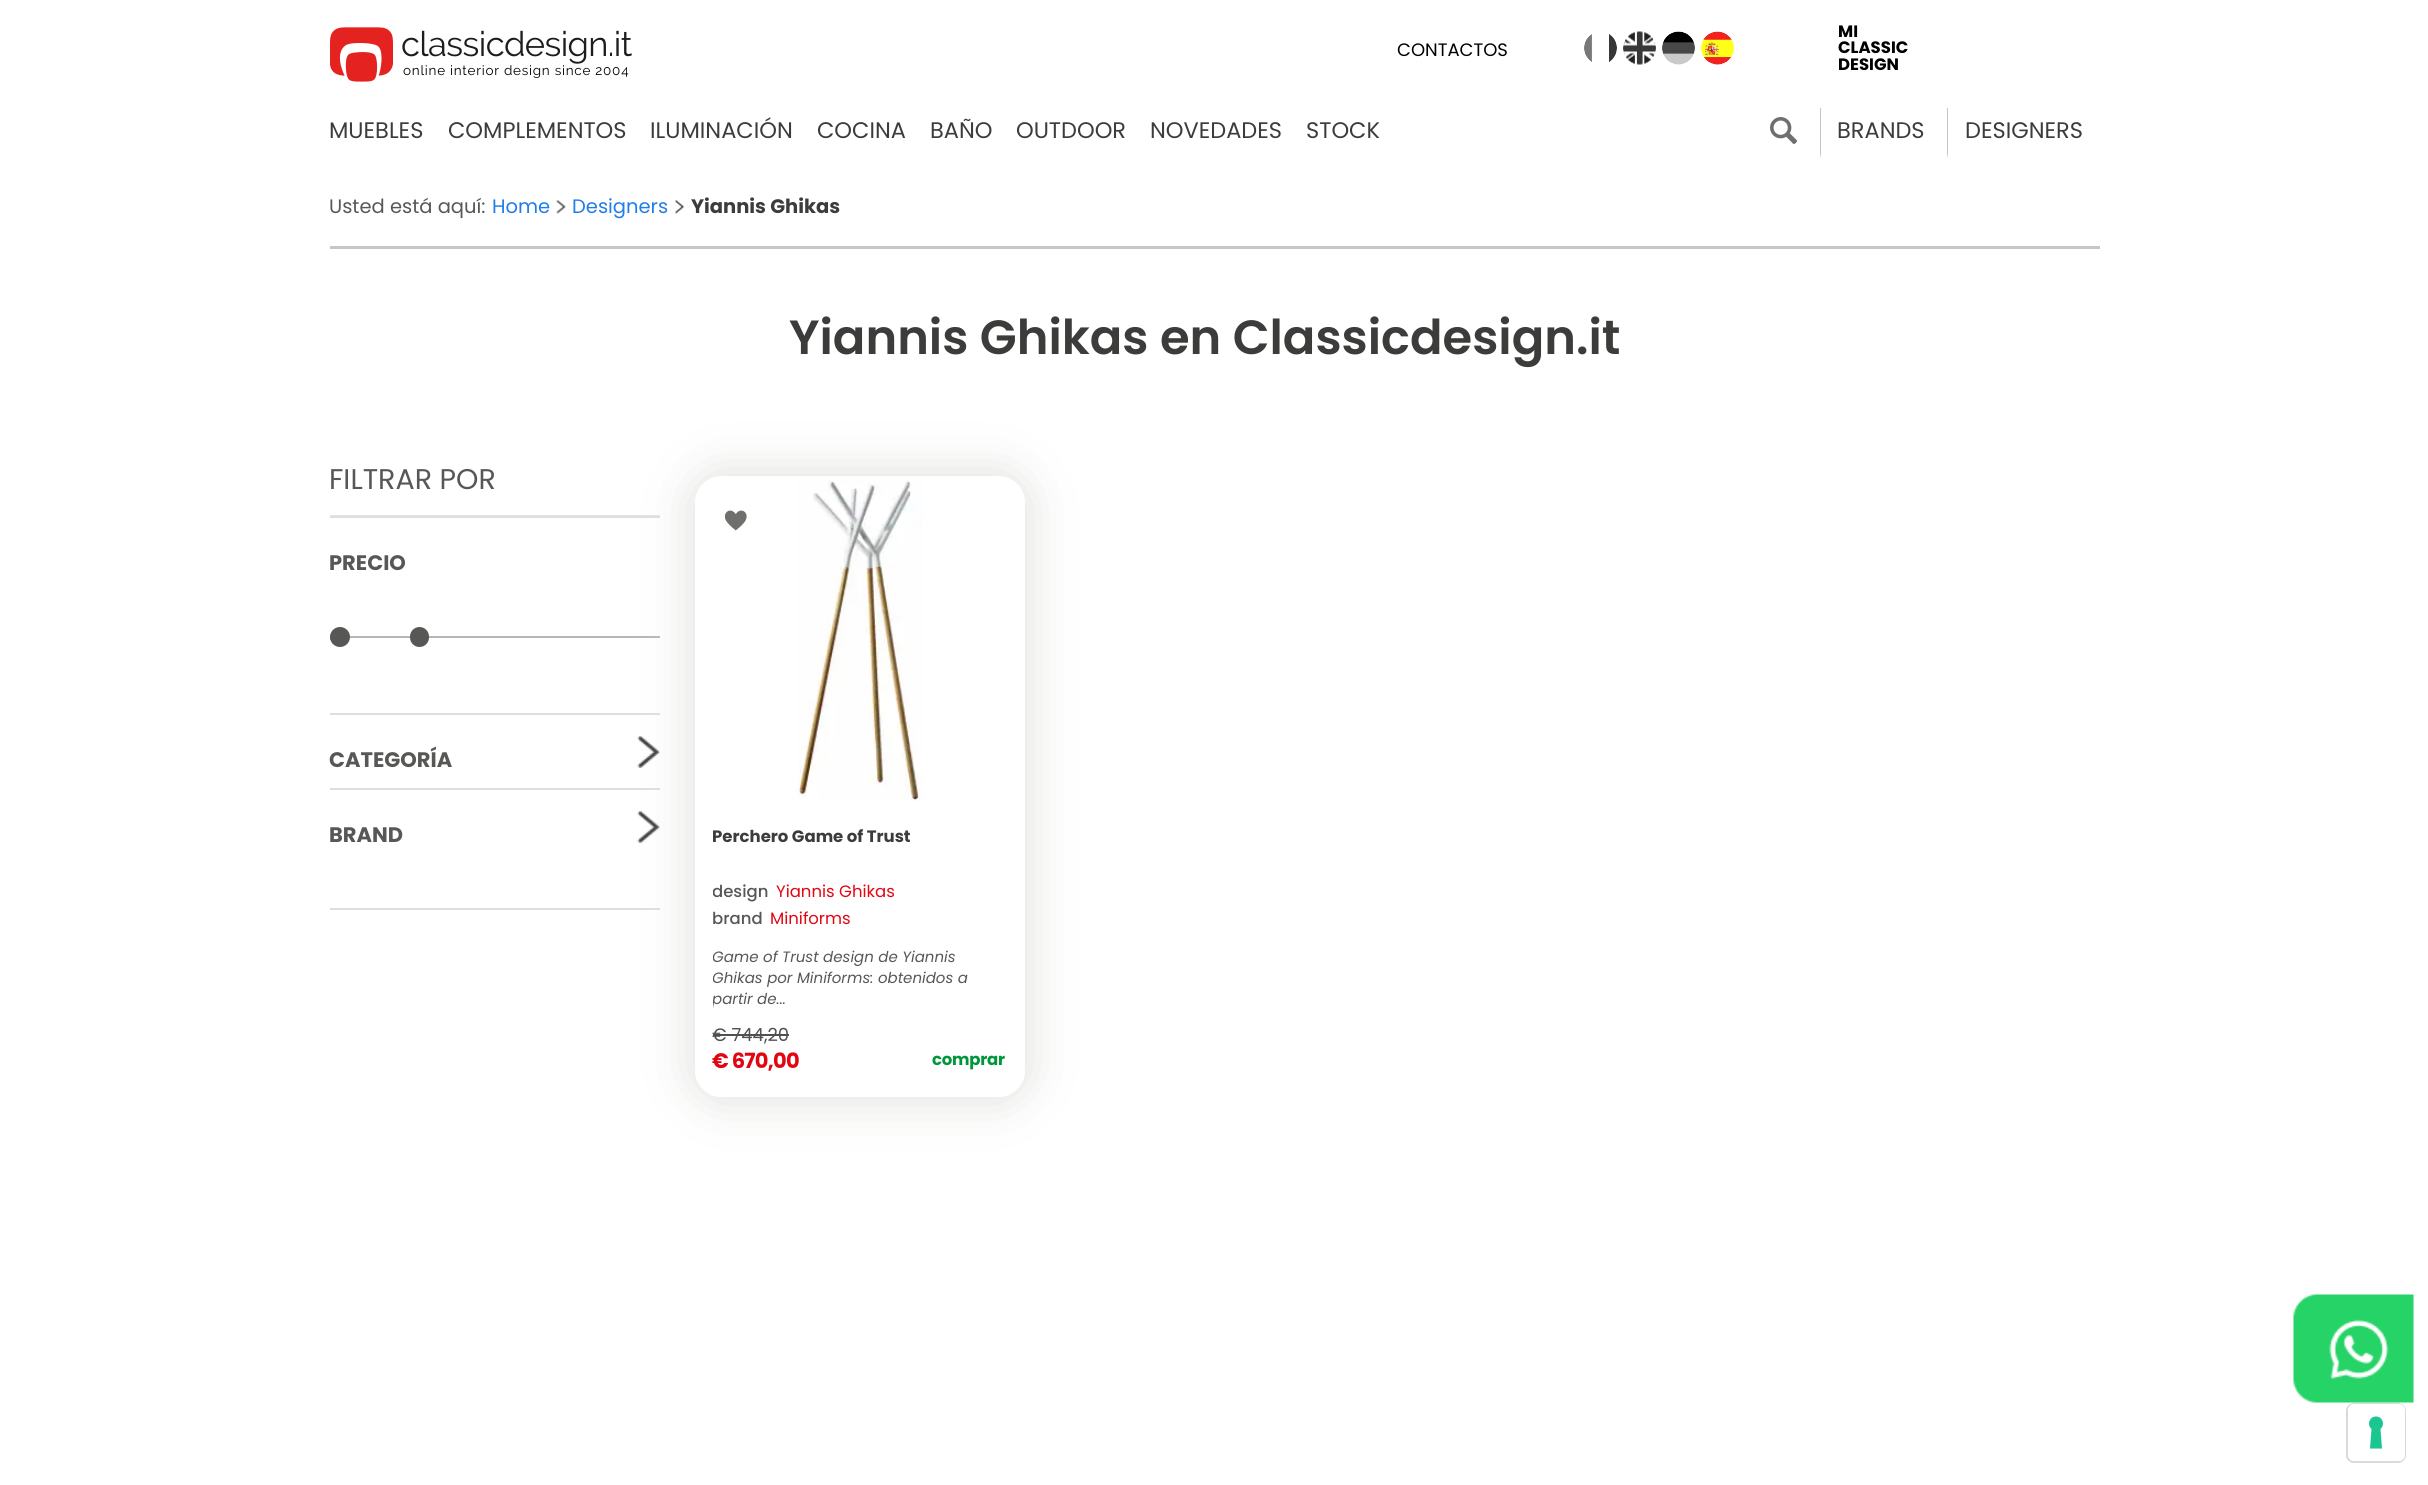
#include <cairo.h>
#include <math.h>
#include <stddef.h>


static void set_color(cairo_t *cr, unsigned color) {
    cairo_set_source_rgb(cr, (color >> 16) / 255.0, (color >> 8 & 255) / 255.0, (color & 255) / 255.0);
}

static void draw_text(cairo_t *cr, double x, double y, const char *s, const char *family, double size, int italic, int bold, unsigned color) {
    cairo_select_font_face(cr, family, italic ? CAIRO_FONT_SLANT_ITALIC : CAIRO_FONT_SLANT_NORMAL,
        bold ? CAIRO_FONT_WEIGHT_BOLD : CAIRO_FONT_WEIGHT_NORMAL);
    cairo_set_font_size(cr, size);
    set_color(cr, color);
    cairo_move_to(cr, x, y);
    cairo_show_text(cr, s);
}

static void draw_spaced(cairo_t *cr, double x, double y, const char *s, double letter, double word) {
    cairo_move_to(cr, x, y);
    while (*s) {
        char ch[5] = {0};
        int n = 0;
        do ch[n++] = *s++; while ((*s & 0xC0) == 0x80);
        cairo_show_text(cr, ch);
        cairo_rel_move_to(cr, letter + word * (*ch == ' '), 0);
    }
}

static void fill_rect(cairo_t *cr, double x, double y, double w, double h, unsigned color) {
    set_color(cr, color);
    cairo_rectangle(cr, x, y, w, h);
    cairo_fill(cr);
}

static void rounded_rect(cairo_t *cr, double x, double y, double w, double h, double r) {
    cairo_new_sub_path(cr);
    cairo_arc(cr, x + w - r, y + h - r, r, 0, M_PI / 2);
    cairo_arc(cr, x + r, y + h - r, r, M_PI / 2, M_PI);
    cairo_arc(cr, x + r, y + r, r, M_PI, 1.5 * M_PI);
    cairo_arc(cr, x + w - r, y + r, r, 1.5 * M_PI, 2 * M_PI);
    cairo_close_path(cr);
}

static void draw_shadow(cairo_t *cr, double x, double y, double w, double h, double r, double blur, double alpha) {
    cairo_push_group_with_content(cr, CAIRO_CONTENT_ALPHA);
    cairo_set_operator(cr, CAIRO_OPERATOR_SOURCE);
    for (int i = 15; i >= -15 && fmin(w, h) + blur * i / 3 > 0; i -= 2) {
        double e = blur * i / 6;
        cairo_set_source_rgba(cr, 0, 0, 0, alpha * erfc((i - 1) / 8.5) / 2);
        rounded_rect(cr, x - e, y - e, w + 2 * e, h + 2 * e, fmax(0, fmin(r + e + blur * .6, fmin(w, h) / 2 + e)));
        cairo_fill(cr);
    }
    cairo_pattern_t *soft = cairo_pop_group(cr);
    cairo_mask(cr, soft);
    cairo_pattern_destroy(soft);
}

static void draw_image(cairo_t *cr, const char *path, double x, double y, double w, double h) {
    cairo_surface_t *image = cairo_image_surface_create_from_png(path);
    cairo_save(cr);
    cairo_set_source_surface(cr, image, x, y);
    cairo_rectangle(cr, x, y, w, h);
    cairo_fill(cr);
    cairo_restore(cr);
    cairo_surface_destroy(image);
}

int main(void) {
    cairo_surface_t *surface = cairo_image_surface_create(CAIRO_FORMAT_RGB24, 2428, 1485);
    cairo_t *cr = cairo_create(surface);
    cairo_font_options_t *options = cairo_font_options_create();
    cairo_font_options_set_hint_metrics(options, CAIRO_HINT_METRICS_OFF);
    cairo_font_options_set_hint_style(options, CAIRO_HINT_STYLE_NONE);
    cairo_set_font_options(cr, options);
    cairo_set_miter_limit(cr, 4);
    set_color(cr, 0xFFFFFF);
    cairo_paint(cr);
    draw_image(cr, "assets/img1.png", 330, 27, 63, 55);
    cairo_select_font_face(cr, "Raleway", CAIRO_FONT_SLANT_NORMAL, CAIRO_FONT_WEIGHT_NORMAL);
    cairo_set_font_size(cr, 34.5);
    set_color(cr, 0x1D1D1B);
    draw_spaced(cr, 401, 56, "classicdesign.it", -0.6, 0);
    cairo_set_font_size(cr, 13.5);
    set_color(cr, 0x000000);
    draw_spaced(cr, 403, 75, "online interior design since 2004", 0.75, 0);
    draw_text(cr, 1397, 56, "CONTACTOS", "Poppins", 18, 0, 0, 0x000000);
    draw_image(cr, "assets/img2.png", 1584, 34, 33, 28);
    draw_image(cr, "assets/img3.png", 1623, 31, 33, 34);
    draw_image(cr, "assets/img4.png", 1662, 31, 33, 34);
    draw_image(cr, "assets/img5.png", 1701, 31, 33, 34);
    draw_text(cr, 1838, 37, "MI", "Poppins", 16.5, 0, 1, 0x000000);
    draw_text(cr, 1838, 53, "CLASSIC", "Poppins", 16.5, 0, 1, 0x000000);
    draw_text(cr, 1838, 70, "DESIGN", "Poppins", 16.5, 0, 1, 0x000000);
    draw_text(cr, 329, 138, "MUEBLES", "Poppins", 22.5, 0, 0, 0x3C3C3B);
    draw_text(cr, 448, 138, "COMPLEMENTOS", "Poppins", 22.5, 0, 0, 0x3C3C3B);
    draw_text(cr, 650, 138, "ILUMINACIÓN", "Poppins", 22.5, 0, 0, 0x3C3C3B);
    draw_text(cr, 817, 138, "COCINA", "Poppins", 22.5, 0, 0, 0x3C3C3B);
    draw_text(cr, 930, 138, "BAÑO", "Poppins", 22.5, 0, 0, 0x3C3C3B);
    draw_text(cr, 1016, 138, "OUTDOOR", "Poppins", 22.5, 0, 0, 0x3C3C3B);
    draw_text(cr, 1150, 138, "NOVEDADES", "Poppins", 22.5, 0, 0, 0x3C3C3B);
    draw_text(cr, 1306, 138, "STOCK", "Poppins", 22.5, 0, 0, 0x3C3C3B);
    draw_image(cr, "assets/img6.png", 1770, 117, 27, 27);
    set_color(cr, 0xC5C5C5);
    cairo_new_path(cr);
    cairo_move_to(cr, 1820, 159);
    cairo_line_to(cr, 1820, 108);
    cairo_line_to(cr, 1821, 108);
    cairo_line_to(cr, 1821, 153);
    cairo_close_path(cr);
    cairo_fill(cr);
    draw_text(cr, 1837, 138, "BRANDS", "Poppins", 22.5, 0, 0, 0x3C3C3B);
    set_color(cr, 0xC5C5C5);
    cairo_new_path(cr);
    cairo_move_to(cr, 1947, 159);
    cairo_line_to(cr, 1947, 108);
    cairo_line_to(cr, 1948, 108);
    cairo_line_to(cr, 1948, 153);
    cairo_close_path(cr);
    cairo_fill(cr);
    draw_text(cr, 1965, 138, "DESIGNERS", "Poppins", 22.5, 0, 0, 0x3C3C3B);
    fill_rect(cr, 330, 246, 1770, 3, 0xC6C6C5);
    draw_text(cr, 329, 213, "Usted está aquí:", "Poppins", 19.5, 0, 0, 0x575756);
    draw_text(cr, 492, 213, "Home", "Poppins", 19.5, 0, 0, 0x217DE9);
    draw_image(cr, "assets/img7.png", 556, 200, 10, 14);
    draw_text(cr, 572, 213, "Designers", "Poppins", 19.5, 0, 0, 0x217DE9);
    draw_image(cr, "assets/img8.png", 675, 200, 9, 14);
    draw_text(cr, 691, 213, "Yiannis Ghikas", "Poppins", 19.5, 0, 1, 0x3C3C3B);
    draw_text(cr, 789, 354, "Yiannis Ghikas en Classicdesign.it", "Poppins SemiBold", 48, 0, 0, 0x3C3C3B);
    fill_rect(cr, 330, 515, 330, 1, 0xE5E5E5);
    draw_text(cr, 329, 489, "FILTRAR POR", "Poppins", 28.5, 0, 0, 0x575756);
    fill_rect(cr, 330, 908, 330, 2, 0xDEDEDE);
    fill_rect(cr, 330, 516, 330, 2, 0xDEDEDE);
    draw_text(cr, 329, 570, "PRECIO", "Poppins", 21, 0, 1, 0x575756);
    fill_rect(cr, 349, 636, 311, 2, 0xB6B6B6);
    fill_rect(cr, 330, 635, 1, 5, 0xB6B6B5);
    set_color(cr, 0x575756);
    cairo_new_path(cr);
    cairo_arc(cr, 340, 637, 10, 0, 2 * M_PI);
    cairo_fill(cr);
    rounded_rect(cr, 410, 627, 19, 20, 9.5);
    cairo_fill(cr);
    fill_rect(cr, 330, 713, 330, 2, 0xDEDEDE);
    draw_text(cr, 329, 767, "CATEGORÍA", "Poppins", 21, 0, 1, 0x575756);
    draw_image(cr, "assets/img9.png", 637, 736, 23, 32);
    fill_rect(cr, 330, 788, 330, 2, 0xDEDEDE);
    draw_text(cr, 329, 842, "BRAND", "Poppins", 21, 0, 1, 0x575756);
    draw_image(cr, "assets/img9.png", 637, 811, 23, 32);
    cairo_save(cr);
    cairo_set_fill_rule(cr, CAIRO_FILL_RULE_EVEN_ODD);
    cairo_new_path(cr);
    cairo_move_to(cr, 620, 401);
    cairo_line_to(cr, 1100, 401);
    cairo_line_to(cr, 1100, 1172);
    cairo_line_to(cr, 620, 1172);
    cairo_close_path(cr);
    cairo_move_to(cr, 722, 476);
    cairo_line_to(cr, 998, 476);
    cairo_curve_to(cr, 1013, 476, 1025, 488, 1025, 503);
    cairo_line_to(cr, 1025, 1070);
    cairo_curve_to(cr, 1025, 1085, 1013, 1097, 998, 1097);
    cairo_line_to(cr, 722, 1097);
    cairo_curve_to(cr, 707, 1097, 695, 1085, 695, 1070);
    cairo_line_to(cr, 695, 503);
    cairo_curve_to(cr, 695, 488, 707, 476, 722, 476);
    cairo_close_path(cr);
    cairo_clip(cr);
    set_color(cr, 0xE3E3E2);
    draw_shadow(cr, 689, 470, 342, 633, 33, 22.5, 1);
    cairo_restore(cr);
    draw_image(cr, "assets/img10.png", 725, 510, 22, 21);
    draw_image(cr, "assets/img11.png", 797, 480, 126, 321);
    cairo_save(cr);
    cairo_rectangle(cr, 713, 824, 294, 54);
    cairo_clip(cr);
    draw_text(cr, 712, 842, "Perchero Game of Trust", "Poppins", 16.5, 0, 1, 0x3C3C3B);
    cairo_restore(cr);
    cairo_save(cr);
    cairo_rectangle(cr, 713, 878, 294, 27);
    cairo_clip(cr);
    draw_text(cr, 712, 897, "design", "Poppins Medium", 16.5, 0, 0, 0x575756);
    cairo_restore(cr);
    draw_text(cr, 776, 897, "Yiannis Ghikas", "Poppins", 16.5, 0, 0, 0xE20613);
    draw_text(cr, 712, 924, "brand", "Poppins Medium", 16.5, 0, 0, 0x575756);
    draw_text(cr, 770, 924, "Miniforms", "Poppins", 16.5, 0, 0, 0xE20613);
    cairo_save(cr);
    cairo_rectangle(cr, 713, 947, 294, 67);
    cairo_clip(cr);
    draw_text(cr, 712, 962, "Game of Trust design de Yiannis", "Poppins", 15, 1, 0, 0x575756);
    draw_text(cr, 712, 983, "Ghikas por Miniforms: obtenidos a", "Poppins", 15, 1, 0, 0x575756);
    draw_text(cr, 712, 1004, "partir de...", "Poppins", 15, 1, 0, 0x575756);
    cairo_restore(cr);
    draw_text(cr, 712, 1041, "€ 744,20", "Poppins", 18, 0, 0, 0x505050);
    fill_rect(cr, 713, 1034, 76, 2, 0x505050);
    cairo_select_font_face(cr, "Poppins", CAIRO_FONT_SLANT_NORMAL, CAIRO_FONT_WEIGHT_BOLD);
    cairo_set_font_size(cr, 21);
    set_color(cr, 0xE20613);
    draw_spaced(cr, 712, 1068, "€ 670,00", -0.75, 0);
    cairo_set_font_size(cr, 16.5);
    set_color(cr, 0x00973A);
    draw_spaced(cr, 932, 1065, "comprar", -0.25, 0);
    draw_image(cr, "assets/img12.png", 2293, 1294, 121, 109);
    rounded_rect(cr, 2347, 1404, 58, 58, 7);
    set_color(cr, 0xD9D9D9);
    cairo_stroke(cr);
    set_color(cr, 0xFFFFFF);
    rounded_rect(cr, 2348, 1404, 57, 57, 6);
    cairo_fill(cr);
    set_color(cr, 0x1CC691);
    cairo_set_fill_rule(cr, CAIRO_FILL_RULE_EVEN_ODD);
    cairo_new_path(cr);
    cairo_move_to(cr, 2376, 1416.5);
    cairo_curve_to(cr, 2382.5, 1416.5, 2385.5, 1424.5, 2380.5, 1429);
    cairo_line_to(cr, 2382, 1448.5);
    cairo_line_to(cr, 2370, 1448.5);
    cairo_line_to(cr, 2371.5, 1429);
    cairo_curve_to(cr, 2366.5, 1424.5, 2369.5, 1416.5, 2376, 1416.5);
    cairo_close_path(cr);
    cairo_fill(cr);
    cairo_surface_write_to_png(surface, "output.png");
    cairo_font_options_destroy(options);
    cairo_destroy(cr);
    cairo_surface_destroy(surface);
    return 0;
}
